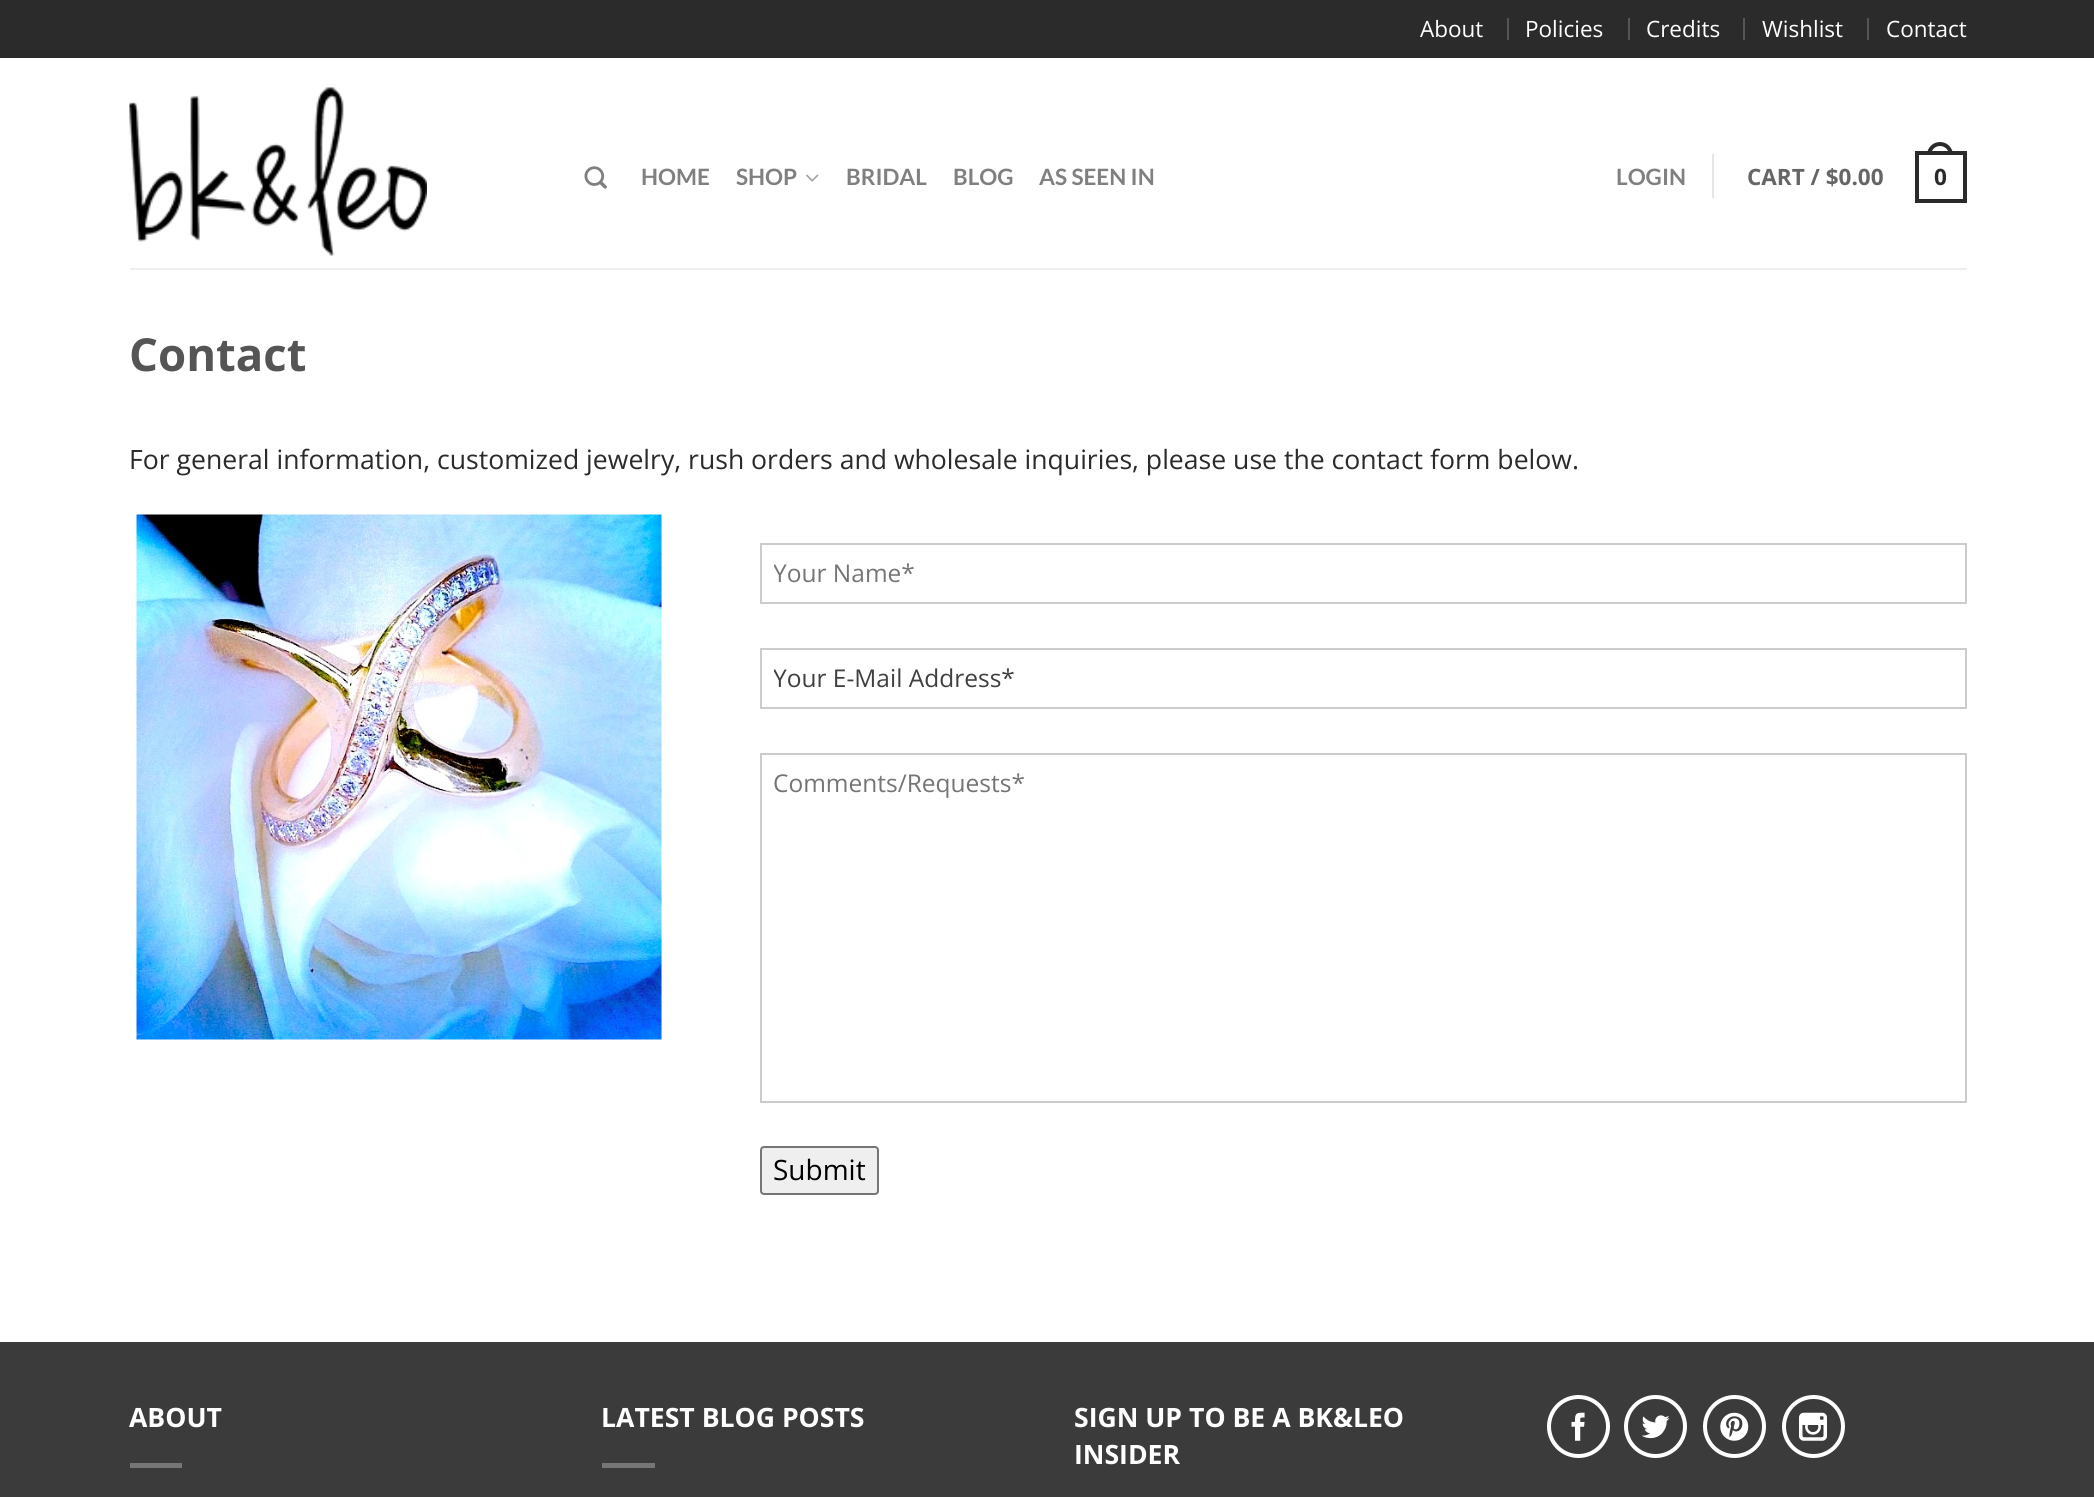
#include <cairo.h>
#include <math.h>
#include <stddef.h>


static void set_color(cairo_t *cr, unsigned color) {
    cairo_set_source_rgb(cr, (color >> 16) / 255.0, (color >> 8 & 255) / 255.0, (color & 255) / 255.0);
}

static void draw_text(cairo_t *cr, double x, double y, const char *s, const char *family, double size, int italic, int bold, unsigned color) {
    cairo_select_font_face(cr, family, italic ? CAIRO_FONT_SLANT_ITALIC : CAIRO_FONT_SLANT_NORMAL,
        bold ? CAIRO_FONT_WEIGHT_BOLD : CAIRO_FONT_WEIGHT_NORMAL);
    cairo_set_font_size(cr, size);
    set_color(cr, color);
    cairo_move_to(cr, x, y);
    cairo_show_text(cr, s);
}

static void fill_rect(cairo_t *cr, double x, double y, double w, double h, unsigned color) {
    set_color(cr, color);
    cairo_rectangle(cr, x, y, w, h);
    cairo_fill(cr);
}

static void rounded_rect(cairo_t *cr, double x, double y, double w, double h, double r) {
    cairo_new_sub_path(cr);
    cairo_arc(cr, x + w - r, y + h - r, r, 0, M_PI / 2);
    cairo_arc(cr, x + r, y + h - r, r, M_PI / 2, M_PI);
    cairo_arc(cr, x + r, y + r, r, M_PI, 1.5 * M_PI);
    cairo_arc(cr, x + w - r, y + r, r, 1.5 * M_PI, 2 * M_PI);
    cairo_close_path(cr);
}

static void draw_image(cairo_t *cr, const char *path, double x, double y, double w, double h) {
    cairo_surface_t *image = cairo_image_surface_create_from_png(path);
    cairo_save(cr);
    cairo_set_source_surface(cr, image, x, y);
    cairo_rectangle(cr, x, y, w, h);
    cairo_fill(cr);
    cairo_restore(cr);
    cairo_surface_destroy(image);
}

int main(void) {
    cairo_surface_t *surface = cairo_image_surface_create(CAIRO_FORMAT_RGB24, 2094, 1497);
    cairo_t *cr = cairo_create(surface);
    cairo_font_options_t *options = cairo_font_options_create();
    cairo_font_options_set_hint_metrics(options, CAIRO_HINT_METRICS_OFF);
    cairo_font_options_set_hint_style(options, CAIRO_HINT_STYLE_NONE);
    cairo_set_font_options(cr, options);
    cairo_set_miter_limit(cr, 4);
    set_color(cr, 0xFFFFFF);
    cairo_paint(cr);
    fill_rect(cr, 0, 0, 2094, 58, 0x2B2B2B);
    draw_text(cr, 1420, 37, "About", "Open Sans", 22.5, 0, 0, 0xFFFFFF);
    fill_rect(cr, 1507, 18, 2, 22, 0x555555);
    draw_text(cr, 1525, 37, "Policies", "Open Sans", 22.5, 0, 0, 0xFFFFFF);
    fill_rect(cr, 1628, 18, 2, 22, 0x555555);
    draw_text(cr, 1646, 37, "Credits", "Open Sans", 22.5, 0, 0, 0xFFFFFF);
    fill_rect(cr, 1743, 18, 2, 22, 0x555555);
    draw_text(cr, 1762, 37, "Wishlist", "Open Sans", 22.5, 0, 0, 0xFFFFFF);
    fill_rect(cr, 1867, 18, 2, 22, 0x555555);
    draw_text(cr, 1886, 37, "Contact", "Open Sans", 22.5, 0, 0, 0xFFFFFF);
    draw_image(cr, "assets/img1.png", 129, 87, 298, 169);
    draw_image(cr, "assets/img2.png", 584, 166, 23, 23);
    draw_text(cr, 641, 185, "HOME", "Lato", 22.5, 0, 1, 0x808080);
    draw_text(cr, 736, 185, "SHOP", "Lato", 22.5, 0, 1, 0x808080);
    draw_image(cr, "assets/img3.png", 806, 174, 13, 8);
    draw_text(cr, 846, 185, "BRIDAL", "Lato", 22.5, 0, 1, 0x808080);
    draw_text(cr, 953, 185, "BLOG", "Lato", 22.5, 0, 1, 0x808080);
    draw_text(cr, 1039, 185, "AS SEEN IN", "Lato", 22.5, 0, 1, 0x808080);
    fill_rect(cr, 1712, 154, 2, 44, 0xE6E6E6);
    draw_text(cr, 1616, 185, "LOGIN", "Lato", 22.5, 0, 1, 0x808080);
    draw_text(cr, 1747, 185, "CART / $0.00", "Open Sans", 22.5, 0, 1, 0x666666);
    cairo_new_path(cr);
    cairo_arc(cr, 1940, 155, 11, 0, 2 * M_PI);
    set_color(cr, 0x2B2B2B);
    cairo_set_line_width(cr, 4);
    cairo_stroke(cr);
    fill_rect(cr, 1927, 155, 26, 13, 0xFFFFFF);
    cairo_rectangle(cr, 1917, 153, 48, 48);
    set_color(cr, 0x2B2B2B);
    cairo_stroke(cr);
    draw_text(cr, 1934, 185, "0", "Open Sans", 22.5, 0, 1, 0x2B2B2B);
    fill_rect(cr, 130, 268, 1837, 2, 0xEEEEEE);
    draw_text(cr, 129, 371, "Contact", "Open Sans", 45.5, 0, 1, 0x555555);
    draw_text(cr, 129, 469, "For general information, customized jewelry, rush orders and wholesale inquiries, please use the contact form below.", "Open Sans", 26.6, 0, 0, 0x2B2B2B);
    draw_image(cr, "assets/img4.png", 136, 514, 526, 526);
    cairo_rectangle(cr, 761, 544, 1205, 59);
    set_color(cr, 0xCCCCCC);
    cairo_set_line_width(cr, 2);
    cairo_stroke(cr);
    cairo_save(cr);
    cairo_rectangle(cr, 774, 557, 1179, 33);
    cairo_clip(cr);
    draw_text(cr, 773, 582, "Your Name*", "Open Sans", 24.5, 0, 0, 0x757575);
    cairo_restore(cr);
    cairo_rectangle(cr, 761, 649, 1205, 59);
    cairo_stroke(cr);
    cairo_save(cr);
    cairo_rectangle(cr, 774, 662, 1179, 33);
    cairo_clip(cr);
    draw_text(cr, 773, 687, "Your E-Mail Address*", "Open Sans", 24.5, 0, 0, 0x404040);
    cairo_restore(cr);
    cairo_rectangle(cr, 761, 754, 1205, 348);
    cairo_stroke(cr);
    draw_text(cr, 773, 792, "Comments/Requests*", "Open Sans", 24.5, 0, 0, 0x757575);
    set_color(cr, 0xEFEFEF);
    rounded_rect(cr, 761, 1147, 117, 47, 3);
    cairo_fill_preserve(cr);
    set_color(cr, 0x767676);
    cairo_stroke(cr);
    draw_text(cr, 773, 1180, "Submit", "Open Sans", 28, 0, 0, 0x000000);
    fill_rect(cr, 0, 1342, 2094, 155, 0x3B3B3B);
    draw_text(cr, 129, 1427, "ABOUT", "Open Sans", 26.6, 0, 1, 0xFFFFFF);
    fill_rect(cr, 130, 1463, 52, 5, 0x767676);
    draw_text(cr, 601, 1427, "LATEST BLOG POSTS", "Open Sans", 26.6, 0, 1, 0xFFFFFF);
    fill_rect(cr, 602, 1463, 53, 5, 0x767676);
    draw_text(cr, 1074, 1427, "SIGN UP TO BE A BK&LEO", "Open Sans", 26.6, 0, 1, 0xFFFFFF);
    draw_text(cr, 1074, 1464, "INSIDER", "Open Sans", 26.6, 0, 1, 0xFFFFFF);
    cairo_new_path(cr);
    cairo_arc(cr, 1578.5, 1426.5, 29.5, 0, 2 * M_PI);
    cairo_set_line_width(cr, 4);
    cairo_stroke(cr);
    draw_image(cr, "assets/img5.png", 1571, 1412, 14, 29);
    cairo_arc(cr, 1655.5, 1426.5, 29.5, 0, 2 * M_PI);
    cairo_stroke(cr);
    draw_image(cr, "assets/img6.png", 1641, 1415, 29, 24);
    cairo_arc(cr, 1734.5, 1426.5, 29.5, 0, 2 * M_PI);
    cairo_stroke(cr);
    draw_image(cr, "assets/img7.png", 1720, 1412, 29, 29);
    cairo_arc(cr, 1813.5, 1426.5, 29.5, 0, 2 * M_PI);
    cairo_stroke(cr);
    draw_image(cr, "assets/img8.png", 1799, 1412, 28, 29);
    cairo_surface_write_to_png(surface, "output.png");
    cairo_font_options_destroy(options);
    cairo_destroy(cr);
    cairo_surface_destroy(surface);
    return 0;
}
